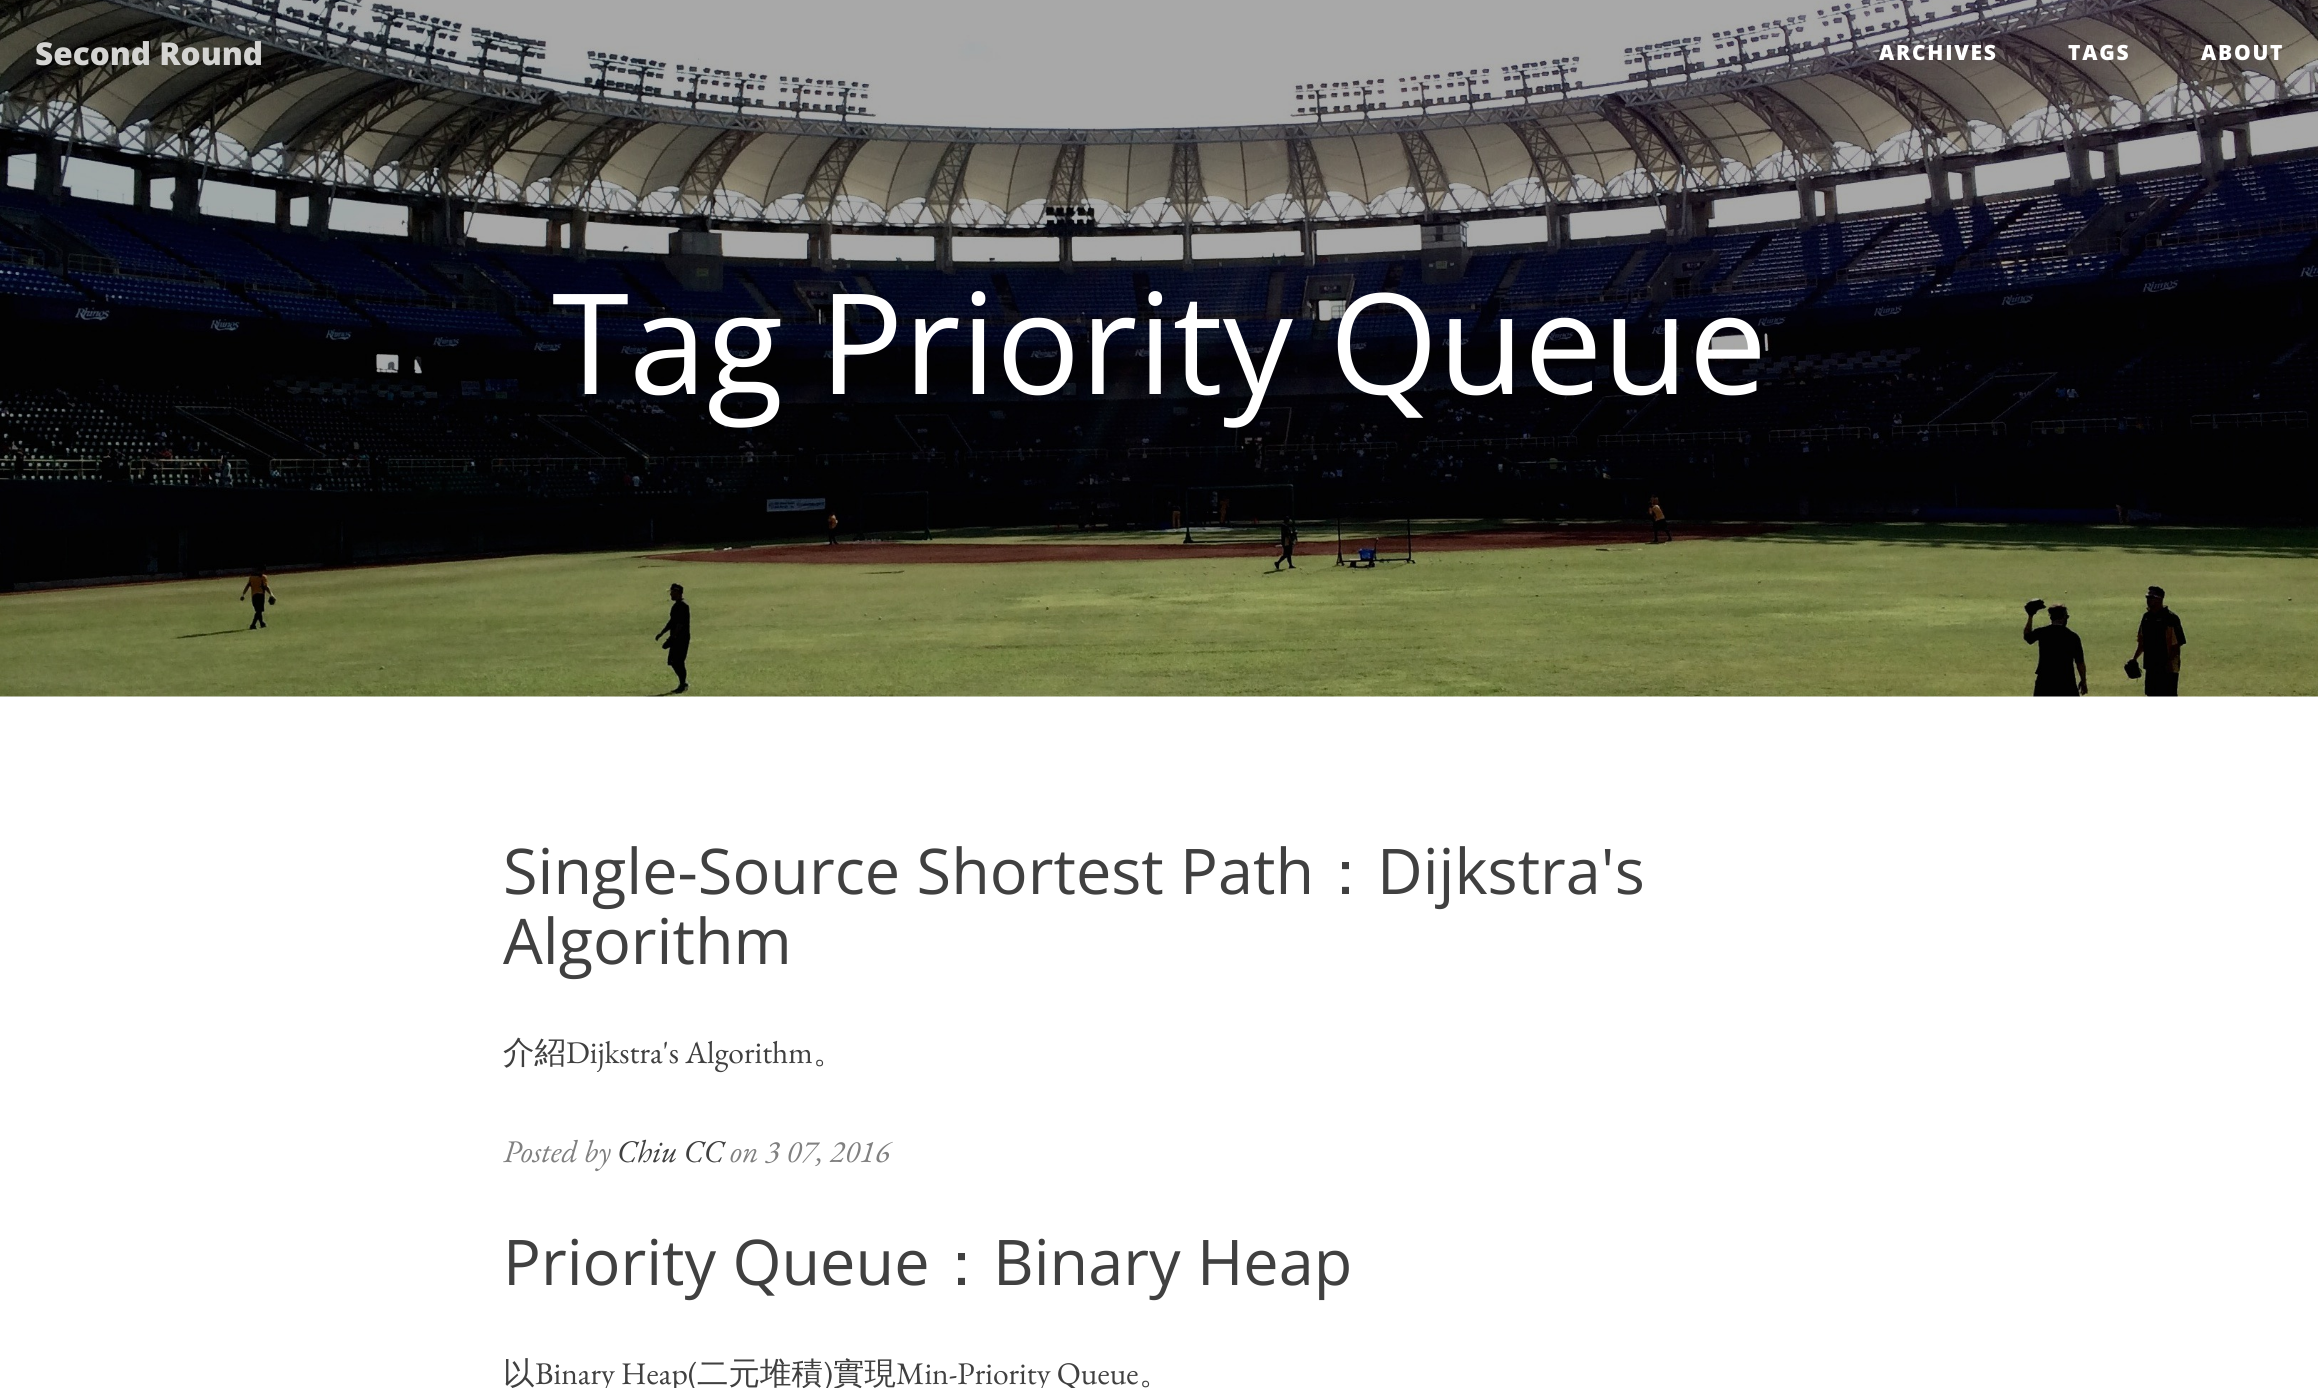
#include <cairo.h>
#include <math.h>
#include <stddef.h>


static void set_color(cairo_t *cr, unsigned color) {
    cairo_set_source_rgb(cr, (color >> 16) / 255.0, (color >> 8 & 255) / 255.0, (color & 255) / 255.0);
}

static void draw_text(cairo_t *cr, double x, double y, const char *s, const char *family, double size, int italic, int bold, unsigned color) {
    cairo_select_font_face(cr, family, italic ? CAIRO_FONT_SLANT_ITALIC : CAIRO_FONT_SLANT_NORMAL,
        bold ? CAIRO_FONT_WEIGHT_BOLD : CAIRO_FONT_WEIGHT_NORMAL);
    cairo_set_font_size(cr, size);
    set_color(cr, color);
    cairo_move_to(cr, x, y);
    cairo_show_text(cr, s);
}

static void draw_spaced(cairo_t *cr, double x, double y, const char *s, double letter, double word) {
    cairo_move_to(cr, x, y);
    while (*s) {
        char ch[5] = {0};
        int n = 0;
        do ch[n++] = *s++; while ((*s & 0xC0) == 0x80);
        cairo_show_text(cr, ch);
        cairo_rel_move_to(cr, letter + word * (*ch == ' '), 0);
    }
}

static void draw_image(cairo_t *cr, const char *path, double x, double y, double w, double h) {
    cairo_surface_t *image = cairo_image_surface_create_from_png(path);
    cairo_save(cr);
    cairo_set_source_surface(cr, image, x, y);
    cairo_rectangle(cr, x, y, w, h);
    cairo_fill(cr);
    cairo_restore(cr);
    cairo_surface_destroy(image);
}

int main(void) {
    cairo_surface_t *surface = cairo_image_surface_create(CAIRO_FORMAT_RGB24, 2318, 1388);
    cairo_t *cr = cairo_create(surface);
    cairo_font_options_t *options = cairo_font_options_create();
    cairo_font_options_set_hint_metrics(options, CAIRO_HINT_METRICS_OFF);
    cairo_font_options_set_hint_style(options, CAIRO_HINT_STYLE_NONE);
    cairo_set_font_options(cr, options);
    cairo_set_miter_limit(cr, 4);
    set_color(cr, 0xFFFFFF);
    cairo_paint(cr);
    draw_image(cr, "assets/img1.png", 0, 0, 2318, 697);
    draw_text(cr, 35, 65, "Second Round", "Open Sans ExtraBold", 31.5, 0, 0, 0xD4D4D2);
    cairo_set_font_size(cr, 21);
    set_color(cr, 0xFFFFFF);
    draw_spaced(cr, 1879, 60, "ARCHIVES", 1.75, 0);
    draw_spaced(cr, 2068, 60, "TAGS", 1.75, 0);
    draw_spaced(cr, 2201, 60, "ABOUT", 1.75, 0);
    draw_text(cr, 552, 394, "Tag Priority Queue", "Open Sans", 140, 0, 0, 0xFFFFFF);
    draw_text(cr, 503, 894, "Single-Source Shortest Path", "Open Sans", 63, 0, 0, 0x404040);
    draw_text(cr, 1314, 894, "：", "WenQuanYi Zen Hei Medium", 63, 0, 0, 0x404040);
    draw_text(cr, 1377, 894, "Dijkstra's", "Open Sans", 63, 0, 0, 0x404040);
    draw_text(cr, 503, 964, "Algorithm", "Open Sans", 63, 0, 0, 0x404040);
    draw_text(cr, 503, 1063, "介紹", "WenQuanYi Zen Hei Medium", 31.5, 0, 0, 0x404040);
    draw_text(cr, 566, 1063, "Dijkstra's Algorithm", "EB Garamond", 31.5, 0, 0, 0x404040);
    draw_text(cr, 813, 1063, "。", "WenQuanYi Zen Hei Medium", 31.5, 0, 0, 0x404040);
    draw_text(cr, 503, 1162, "Posted by", "EB Garamond", 31.5, 1, 0, 0x808080);
    draw_text(cr, 617, 1162, "Chiu CC", "EB Garamond", 31.5, 1, 0, 0x404040);
    draw_text(cr, 730, 1162, "on 3 07, 2016", "EB Garamond", 31.5, 1, 0, 0x808080);
    draw_text(cr, 503, 1285, "Priority Queue", "Open Sans", 63, 0, 0, 0x404040);
    draw_text(cr, 930, 1285, "：", "WenQuanYi Zen Hei Medium", 63, 0, 0, 0x404040);
    draw_text(cr, 993, 1285, "Binary Heap", "Open Sans", 63, 0, 0, 0x404040);
    draw_text(cr, 503, 1384, "以", "WenQuanYi Zen Hei Medium", 31.5, 0, 0, 0x404040);
    draw_text(cr, 535, 1384, "Binary Heap(", "EB Garamond", 31.5, 0, 0, 0x404040);
    draw_text(cr, 697, 1384, "二元堆積", "WenQuanYi Zen Hei Medium", 31.5, 0, 0, 0x404040);
    draw_text(cr, 823, 1384, ")", "EB Garamond", 31.5, 0, 0, 0x404040);
    draw_text(cr, 833, 1384, "實現", "WenQuanYi Zen Hei Medium", 31.5, 0, 0, 0x404040);
    draw_text(cr, 896, 1384, "Min-Priority Queue", "EB Garamond", 31.5, 0, 0, 0x404040);
    draw_text(cr, 1139, 1384, "。", "WenQuanYi Zen Hei Medium", 31.5, 0, 0, 0x404040);
    cairo_surface_write_to_png(surface, "output.png");
    cairo_font_options_destroy(options);
    cairo_destroy(cr);
    cairo_surface_destroy(surface);
    return 0;
}
